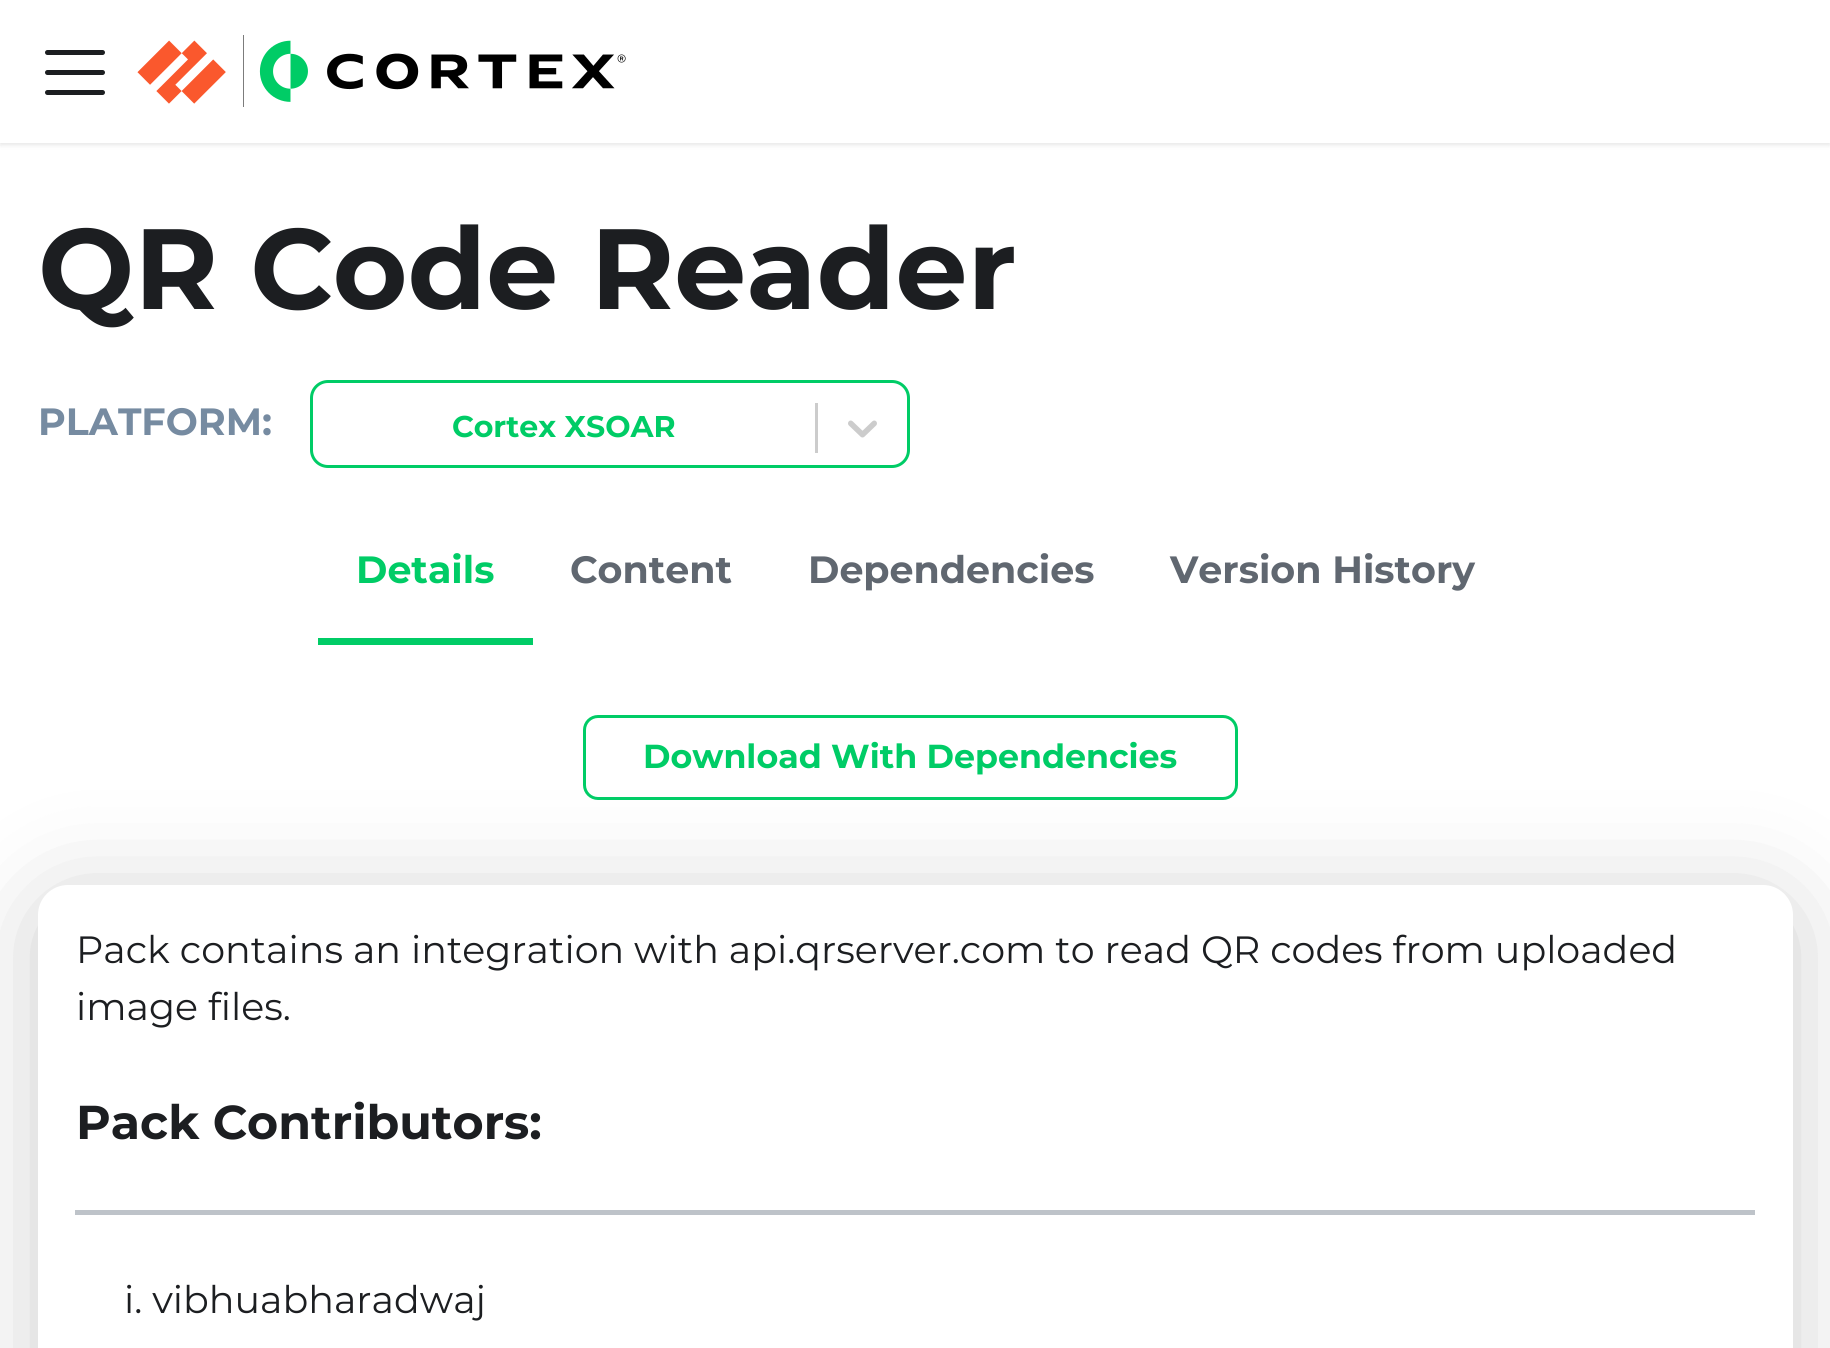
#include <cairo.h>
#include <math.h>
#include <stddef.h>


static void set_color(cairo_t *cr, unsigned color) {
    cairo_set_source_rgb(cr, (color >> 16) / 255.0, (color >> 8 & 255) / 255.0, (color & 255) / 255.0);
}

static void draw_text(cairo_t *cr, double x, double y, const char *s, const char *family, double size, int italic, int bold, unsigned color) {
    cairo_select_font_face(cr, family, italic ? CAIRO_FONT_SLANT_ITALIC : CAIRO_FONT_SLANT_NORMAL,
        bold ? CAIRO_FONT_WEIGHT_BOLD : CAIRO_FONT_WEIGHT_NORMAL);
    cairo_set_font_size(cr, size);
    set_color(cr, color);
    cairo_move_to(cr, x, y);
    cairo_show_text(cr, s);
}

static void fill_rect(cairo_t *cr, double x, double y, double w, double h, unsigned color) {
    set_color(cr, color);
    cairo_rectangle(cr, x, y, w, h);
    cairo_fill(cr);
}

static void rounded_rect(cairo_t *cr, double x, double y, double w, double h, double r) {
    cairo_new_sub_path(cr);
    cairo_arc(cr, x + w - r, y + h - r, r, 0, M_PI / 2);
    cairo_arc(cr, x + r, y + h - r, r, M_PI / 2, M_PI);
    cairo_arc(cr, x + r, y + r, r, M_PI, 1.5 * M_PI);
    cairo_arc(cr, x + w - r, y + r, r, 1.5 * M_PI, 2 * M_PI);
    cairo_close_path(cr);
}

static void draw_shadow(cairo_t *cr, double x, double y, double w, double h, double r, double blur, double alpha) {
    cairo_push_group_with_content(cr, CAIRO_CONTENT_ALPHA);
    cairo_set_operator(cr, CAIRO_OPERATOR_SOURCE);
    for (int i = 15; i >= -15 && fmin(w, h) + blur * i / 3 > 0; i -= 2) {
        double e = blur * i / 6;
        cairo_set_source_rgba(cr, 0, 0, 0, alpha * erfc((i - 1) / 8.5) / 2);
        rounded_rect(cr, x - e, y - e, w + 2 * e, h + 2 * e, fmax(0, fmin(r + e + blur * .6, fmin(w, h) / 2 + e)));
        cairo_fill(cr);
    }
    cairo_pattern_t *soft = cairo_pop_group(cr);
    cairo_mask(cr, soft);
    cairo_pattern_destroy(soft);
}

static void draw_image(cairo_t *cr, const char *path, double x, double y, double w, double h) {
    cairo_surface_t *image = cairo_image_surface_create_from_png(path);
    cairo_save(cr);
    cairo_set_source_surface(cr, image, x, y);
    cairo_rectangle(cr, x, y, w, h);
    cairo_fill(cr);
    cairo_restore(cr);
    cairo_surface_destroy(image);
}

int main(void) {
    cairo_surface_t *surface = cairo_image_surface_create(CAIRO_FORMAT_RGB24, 1830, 1348);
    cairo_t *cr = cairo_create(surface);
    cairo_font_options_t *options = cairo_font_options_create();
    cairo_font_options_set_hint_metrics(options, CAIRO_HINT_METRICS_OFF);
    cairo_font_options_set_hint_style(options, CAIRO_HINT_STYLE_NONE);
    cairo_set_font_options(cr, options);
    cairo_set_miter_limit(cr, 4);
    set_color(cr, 0xFFFFFF);
    cairo_paint(cr);
    set_color(cr, 0x000000);
    draw_shadow(cr, 0, 3, 1830, 142, 0, 2.5, 0.1);
    fill_rect(cr, 0, 0, 1830, 143, 0xFFFFFF);
    cairo_new_path(cr);
    cairo_move_to(cr, 47.5, 52.5);
    cairo_line_to(cr, 102.5, 52.5);
    cairo_move_to(cr, 47.5, 72.5);
    cairo_line_to(cr, 102.5, 72.5);
    cairo_move_to(cr, 47.5, 92.5);
    cairo_line_to(cr, 102.5, 92.5);
    set_color(cr, 0x1C1E21);
    cairo_set_line_width(cr, 5);
    cairo_set_line_cap(cr, CAIRO_LINE_CAP_ROUND);
    cairo_stroke(cr);
    draw_image(cr, "assets/img1.png", 137, 35, 489, 72);
    draw_text(cr, 38, 309, "QR Code Reader", "Montserrat", 114, 0, 1, 0x1C1E21);
    draw_text(cr, 38, 435, "PLATFORM:", "Montserrat", 38, 0, 1, 0x768BA1);
    rounded_rect(cr, 311.5, 381.5, 597, 85, 16.5);
    set_color(cr, 0x00CC66);
    cairo_set_line_width(cr, 3);
    cairo_set_line_cap(cr, CAIRO_LINE_CAP_BUTT);
    cairo_stroke(cr);
    draw_text(cr, 452, 437, "Cortex XSOAR", "Montserrat", 30, 0, 1, 0x00CC66);
    fill_rect(cr, 815, 403, 3, 50, 0xCCCCCC);
    draw_image(cr, "assets/img2.png", 848, 420, 29, 18);
    fill_rect(cr, 318, 638, 215, 7, 0x00CC66);
    draw_text(cr, 356, 583, "Details", "Montserrat", 38, 0, 1, 0x00CC66);
    draw_text(cr, 570, 583, "Content", "Montserrat", 38, 0, 1, 0x606770);
    draw_text(cr, 808, 583, "Dependencies", "Montserrat", 38, 0, 1, 0x606770);
    draw_text(cr, 1170, 583, "Version History", "Montserrat", 38, 0, 1, 0x606770);
    set_color(cr, 0x000000);
    draw_shadow(cr, 38, 898, 1755, 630, 30, 50, 0.2);
    rounded_rect(cr, 584.5, 716.5, 652, 82, 13.5);
    set_color(cr, 0x00CC66);
    cairo_stroke(cr);
    draw_text(cr, 643, 768, "Download With Dependencies", "Montserrat", 33.25, 0, 1, 0x00CC66);
    set_color(cr, 0xFFFFFF);
    rounded_rect(cr, 38, 885, 1755, 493, 30);
    cairo_fill(cr);
    draw_text(cr, 76, 963, "Pack contains an integration with api.qrserver.com to read QR codes from uploaded", "Montserrat", 38, 0, 0, 0x1C1E21);
    draw_text(cr, 76, 1020, "image files.", "Montserrat", 38, 0, 0, 0x1C1E21);
    draw_text(cr, 76, 1139, "Pack Contributors:", "Montserrat", 47.5, 0, 1, 0x1C1E21);
    fill_rect(cr, 75, 1210, 1680, 5, 0xBEC3C9);
    draw_text(cr, 124, 1313, "i. vibhuabharadwaj", "Montserrat", 38, 0, 0, 0x1C1E21);
    cairo_surface_write_to_png(surface, "output.png");
    cairo_font_options_destroy(options);
    cairo_destroy(cr);
    cairo_surface_destroy(surface);
    return 0;
}
